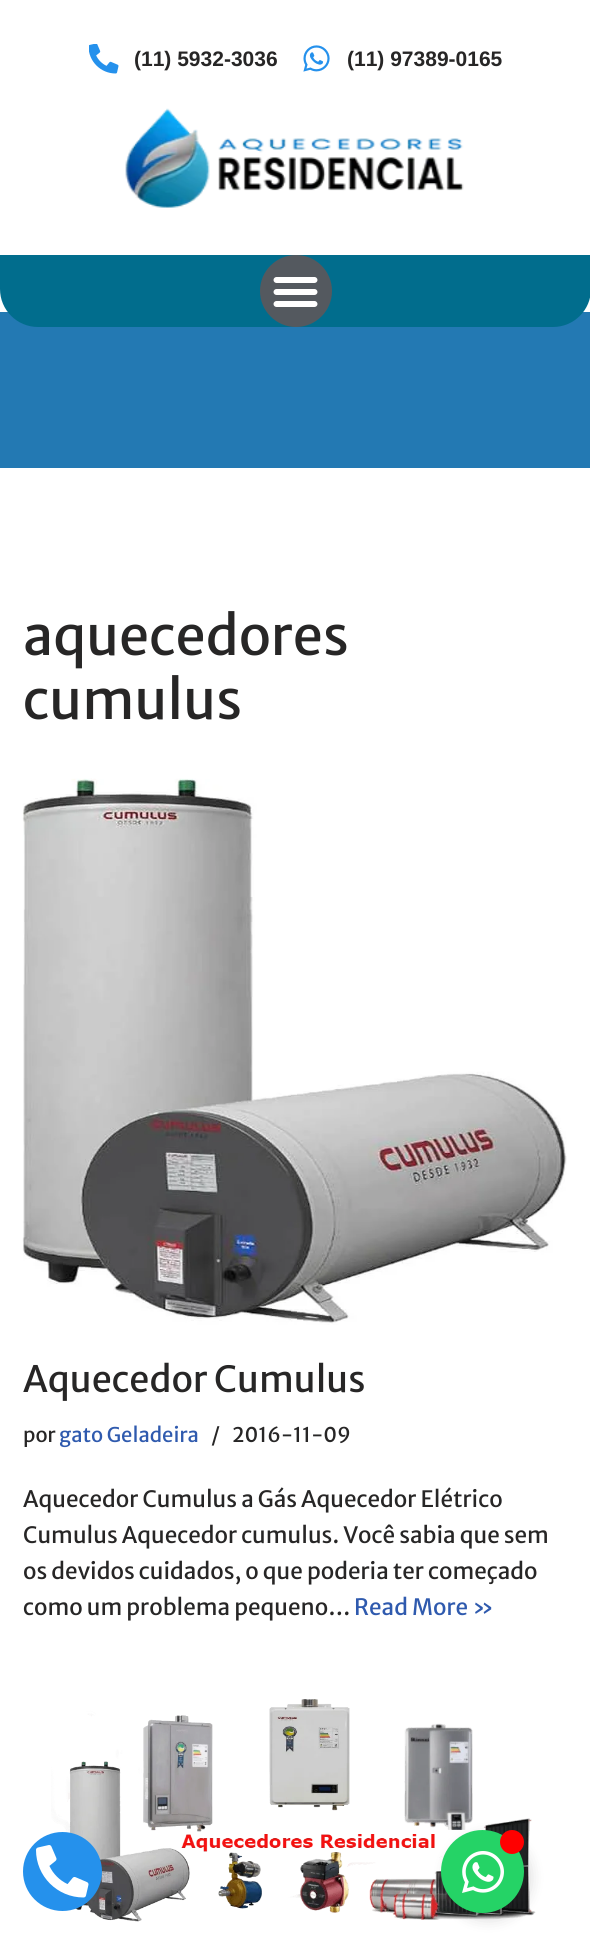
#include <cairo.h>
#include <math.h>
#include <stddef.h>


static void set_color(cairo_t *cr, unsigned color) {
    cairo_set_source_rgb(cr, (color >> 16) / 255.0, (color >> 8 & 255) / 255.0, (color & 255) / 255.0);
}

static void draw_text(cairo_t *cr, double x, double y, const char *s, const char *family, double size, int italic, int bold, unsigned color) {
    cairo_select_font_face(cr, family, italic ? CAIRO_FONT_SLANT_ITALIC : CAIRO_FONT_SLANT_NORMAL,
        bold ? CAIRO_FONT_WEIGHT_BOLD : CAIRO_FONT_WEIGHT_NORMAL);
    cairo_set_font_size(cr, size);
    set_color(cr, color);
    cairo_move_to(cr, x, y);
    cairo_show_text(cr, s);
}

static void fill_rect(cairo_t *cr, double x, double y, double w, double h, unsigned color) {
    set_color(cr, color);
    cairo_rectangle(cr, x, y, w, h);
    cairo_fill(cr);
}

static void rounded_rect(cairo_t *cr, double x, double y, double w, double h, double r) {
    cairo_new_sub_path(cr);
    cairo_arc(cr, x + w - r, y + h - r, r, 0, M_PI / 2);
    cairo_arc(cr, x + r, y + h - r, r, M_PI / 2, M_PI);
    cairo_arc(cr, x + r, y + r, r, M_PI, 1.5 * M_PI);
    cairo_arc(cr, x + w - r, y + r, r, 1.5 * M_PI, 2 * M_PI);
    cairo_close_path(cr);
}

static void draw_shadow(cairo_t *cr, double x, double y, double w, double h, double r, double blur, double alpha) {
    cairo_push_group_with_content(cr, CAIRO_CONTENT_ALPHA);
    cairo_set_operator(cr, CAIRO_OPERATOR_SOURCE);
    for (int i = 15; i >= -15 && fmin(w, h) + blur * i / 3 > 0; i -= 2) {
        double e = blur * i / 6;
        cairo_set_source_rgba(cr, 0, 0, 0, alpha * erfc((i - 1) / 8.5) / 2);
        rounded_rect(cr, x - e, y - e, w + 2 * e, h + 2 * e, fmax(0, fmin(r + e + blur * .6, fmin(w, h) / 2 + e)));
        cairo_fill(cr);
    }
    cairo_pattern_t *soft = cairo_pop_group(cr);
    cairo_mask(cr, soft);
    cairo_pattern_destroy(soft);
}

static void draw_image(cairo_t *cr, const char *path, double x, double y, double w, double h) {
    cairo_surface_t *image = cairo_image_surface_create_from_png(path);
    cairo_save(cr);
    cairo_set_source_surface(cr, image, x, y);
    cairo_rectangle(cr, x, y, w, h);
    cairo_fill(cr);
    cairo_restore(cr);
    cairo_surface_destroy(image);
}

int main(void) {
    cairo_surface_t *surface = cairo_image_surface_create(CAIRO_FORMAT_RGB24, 590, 1949);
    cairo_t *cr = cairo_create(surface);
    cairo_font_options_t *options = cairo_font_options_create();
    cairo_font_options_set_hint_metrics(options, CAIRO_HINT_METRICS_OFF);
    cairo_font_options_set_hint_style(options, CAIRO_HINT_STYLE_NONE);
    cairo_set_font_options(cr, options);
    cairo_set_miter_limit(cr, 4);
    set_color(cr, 0xFFFFFF);
    cairo_paint(cr);
    draw_image(cr, "assets/img1.png", 89, 44, 30, 30);
    draw_text(cr, 134, 66, "(11) 5932-3036", "Liberation Sans", 21, 0, 1, 0x272626);
    draw_image(cr, "assets/img2.png", 303, 45, 27, 27);
    draw_text(cr, 347, 66, "(11) 97389-0165", "Liberation Sans", 21, 0, 1, 0x272626);
    draw_image(cr, "assets/img3.png", 125, 108, 339, 100);
    fill_rect(cr, 0, 312, 590, 156, 0x2379B3);
    set_color(cr, 0x016D8D);
    cairo_new_path(cr);
    cairo_move_to(cr, 0, 255);
    cairo_line_to(cr, 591, 255);
    cairo_line_to(cr, 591, 289);
    cairo_curve_to(cr, 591, 310, 574, 327, 553, 327);
    cairo_line_to(cr, 38, 327);
    cairo_curve_to(cr, 17, 327, 0, 310, 0, 289);
    cairo_close_path(cr);
    cairo_fill(cr);
    set_color(cr, 0x54595F);
    cairo_arc(cr, 296, 291, 36, 0, 2 * M_PI);
    cairo_fill(cr);
    draw_image(cr, "assets/img4.png", 273, 277, 45, 30);
    draw_text(cr, 23, 655, "aquecedores", "Merriweather Sans", 54, 0, 0, 0x272626);
    draw_text(cr, 23, 719, "cumulus", "Merriweather Sans", 54, 0, 0, 0x272626);
    draw_image(cr, "assets/img5.png", 22, 778, 545, 547);
    draw_text(cr, 23, 1392, "Aquecedor Cumulus", "Merriweather Sans", 36, 0, 0, 0x272626);
    draw_text(cr, 23, 1442, "por", "Merriweather Sans", 20.25, 0, 0, 0x272626);
    draw_text(cr, 59, 1442, "gato Geladeira", "Merriweather Sans", 20.25, 0, 0, 0x2F5AAE);
    draw_text(cr, 211, 1442, "/", "Merriweather Sans", 20.25, 0, 0, 0x272626);
    draw_text(cr, 232, 1442, "2016-11-09", "Merriweather Sans", 20.25, 0, 0, 0x272626);
    draw_text(cr, 23, 1507, "Aquecedor Cumulus a Gás Aquecedor Elétrico", "Merriweather Sans", 22.5, 0, 0, 0x272626);
    draw_text(cr, 23, 1543, "Cumulus Aquecedor cumulus. Você sabia que sem", "Merriweather Sans", 22.5, 0, 0, 0x272626);
    draw_text(cr, 23, 1579, "os devidos cuidados, o que poderia ter começado", "Merriweather Sans", 22.5, 0, 0, 0x272626);
    draw_text(cr, 23, 1615, "como um problema pequeno…", "Merriweather Sans", 22.5, 0, 0, 0x272626);
    draw_text(cr, 354, 1615, "Read More »", "Merriweather Sans", 22.5, 0, 0, 0x2F5AAE);
    draw_image(cr, "assets/img6.png", 51, 1699, 485, 223);
    set_color(cr, 0x2591EC);
    cairo_arc(cr, 62.5, 1871.5, 39.5, 0, 2 * M_PI);
    cairo_fill(cr);
    draw_image(cr, "assets/img7.png", 36, 1845, 53, 53);
    set_color(cr, 0x000000);
    draw_shadow(cr, 447, 1836, 83, 83, 41.5, 7.5, 0.15);
    set_color(cr, 0x25D366);
    cairo_arc(cr, 482.5, 1871.5, 41.5, 0, 2 * M_PI);
    cairo_fill(cr);
    draw_image(cr, "assets/img8.png", 462, 1851, 42, 42);
    set_color(cr, 0xFF0000);
    cairo_arc(cr, 512, 1842, 12, 0, 2 * M_PI);
    cairo_fill(cr);
    cairo_surface_write_to_png(surface, "output.png");
    cairo_font_options_destroy(options);
    cairo_destroy(cr);
    cairo_surface_destroy(surface);
    return 0;
}
